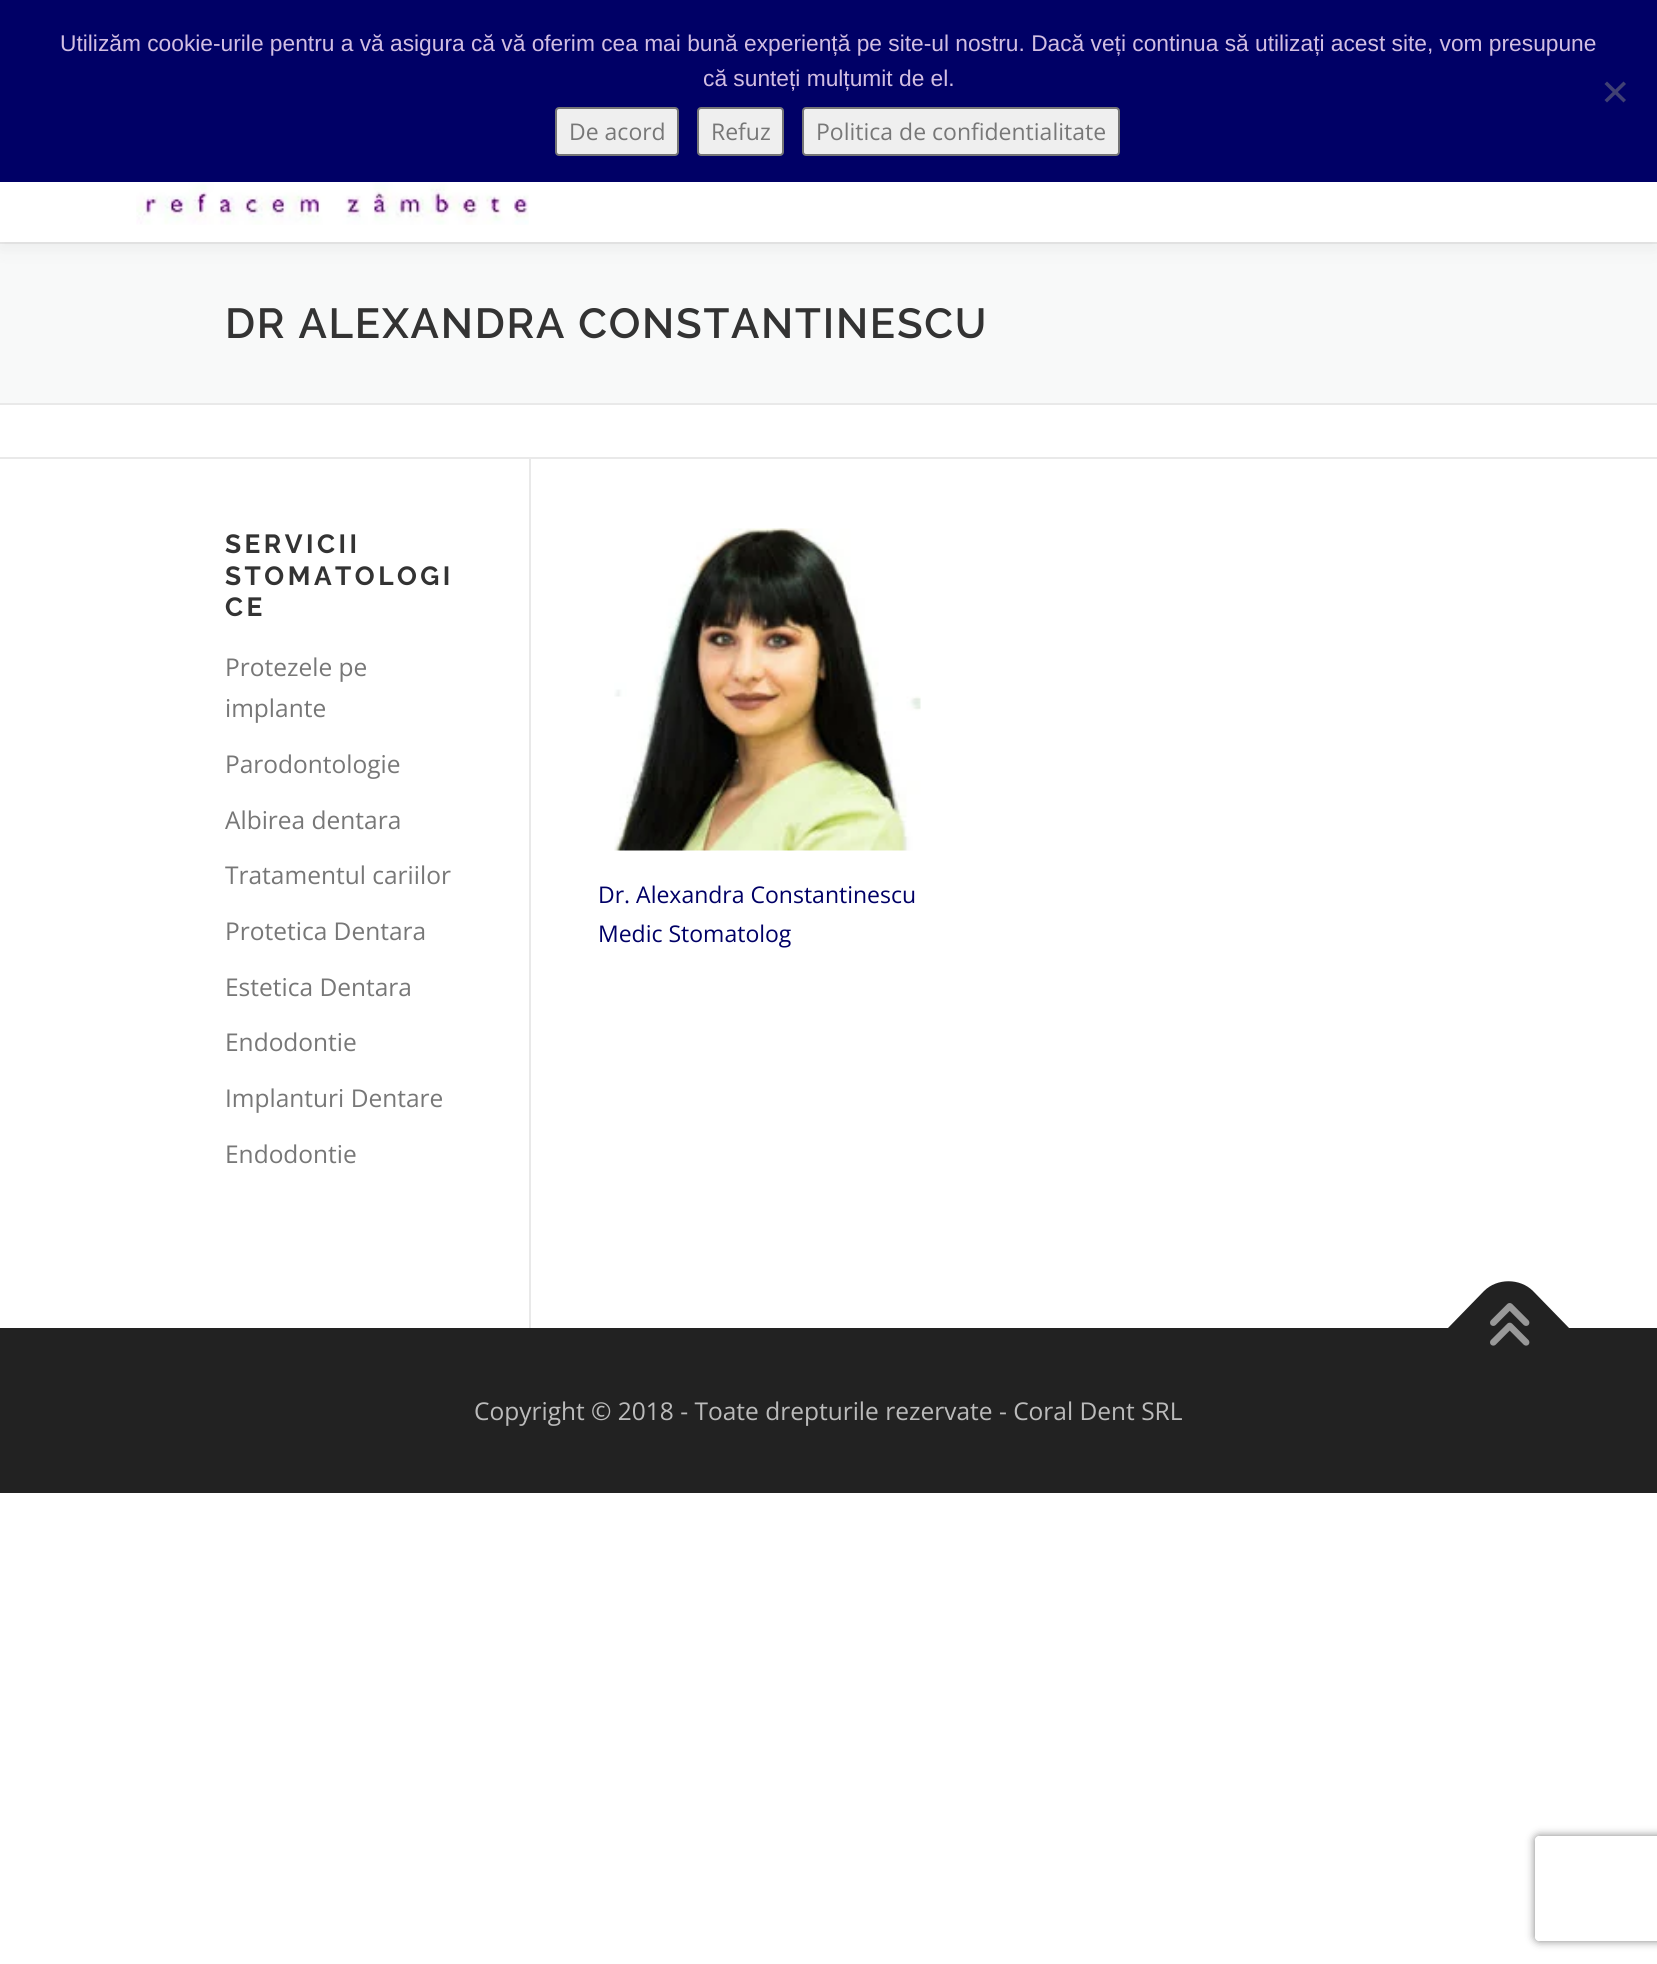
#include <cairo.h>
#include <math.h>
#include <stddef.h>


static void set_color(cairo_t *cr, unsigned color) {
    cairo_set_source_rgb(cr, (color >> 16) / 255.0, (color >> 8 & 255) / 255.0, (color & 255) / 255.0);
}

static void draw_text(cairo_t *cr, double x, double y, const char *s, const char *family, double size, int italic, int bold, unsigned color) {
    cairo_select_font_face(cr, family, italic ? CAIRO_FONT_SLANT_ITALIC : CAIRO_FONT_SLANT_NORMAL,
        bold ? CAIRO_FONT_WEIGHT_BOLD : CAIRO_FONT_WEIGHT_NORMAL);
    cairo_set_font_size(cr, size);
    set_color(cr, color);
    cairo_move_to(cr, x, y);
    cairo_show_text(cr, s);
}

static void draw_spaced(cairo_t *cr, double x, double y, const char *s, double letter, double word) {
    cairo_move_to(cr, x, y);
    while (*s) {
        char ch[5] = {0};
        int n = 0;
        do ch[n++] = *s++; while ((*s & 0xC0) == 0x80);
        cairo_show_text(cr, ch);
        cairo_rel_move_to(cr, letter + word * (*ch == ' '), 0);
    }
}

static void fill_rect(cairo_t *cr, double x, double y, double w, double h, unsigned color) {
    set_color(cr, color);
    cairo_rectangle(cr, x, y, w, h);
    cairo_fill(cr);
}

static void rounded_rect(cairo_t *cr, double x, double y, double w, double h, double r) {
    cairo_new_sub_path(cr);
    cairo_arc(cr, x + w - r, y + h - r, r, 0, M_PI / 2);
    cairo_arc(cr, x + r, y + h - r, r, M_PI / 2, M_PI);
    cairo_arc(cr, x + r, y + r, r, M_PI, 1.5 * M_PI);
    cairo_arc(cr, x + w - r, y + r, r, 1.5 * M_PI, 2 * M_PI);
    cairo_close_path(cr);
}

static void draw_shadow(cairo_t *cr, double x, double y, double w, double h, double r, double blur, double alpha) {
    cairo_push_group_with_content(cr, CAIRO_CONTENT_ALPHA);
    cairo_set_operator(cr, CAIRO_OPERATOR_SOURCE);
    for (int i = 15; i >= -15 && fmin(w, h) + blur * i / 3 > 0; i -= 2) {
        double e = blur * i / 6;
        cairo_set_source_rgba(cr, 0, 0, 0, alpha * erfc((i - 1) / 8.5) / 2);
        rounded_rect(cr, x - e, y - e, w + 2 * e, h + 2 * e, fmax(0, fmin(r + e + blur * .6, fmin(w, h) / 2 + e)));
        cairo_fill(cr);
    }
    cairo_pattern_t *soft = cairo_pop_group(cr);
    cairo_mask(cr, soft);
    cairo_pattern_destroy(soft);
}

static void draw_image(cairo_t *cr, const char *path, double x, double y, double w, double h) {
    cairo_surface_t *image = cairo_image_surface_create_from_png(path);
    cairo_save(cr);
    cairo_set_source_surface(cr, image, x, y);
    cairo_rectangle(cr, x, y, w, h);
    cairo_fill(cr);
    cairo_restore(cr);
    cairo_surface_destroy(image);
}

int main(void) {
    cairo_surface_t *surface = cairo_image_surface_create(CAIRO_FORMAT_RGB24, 1657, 1964);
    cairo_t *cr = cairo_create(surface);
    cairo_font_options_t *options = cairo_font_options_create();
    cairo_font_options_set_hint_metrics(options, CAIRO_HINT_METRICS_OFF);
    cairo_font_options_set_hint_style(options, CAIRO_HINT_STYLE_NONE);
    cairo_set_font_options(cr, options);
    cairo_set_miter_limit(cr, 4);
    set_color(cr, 0xFFFFFF);
    cairo_paint(cr);
    fill_rect(cr, 0, 244, 1657, 159, 0xF8F9F9);
    fill_rect(cr, 0, 242, 1657, 2, 0xE9E9E9);
    set_color(cr, 0x323232);
    draw_shadow(cr, 0, 9, 1657, 241, 0, 9, 0.06);
    fill_rect(cr, 0, 0, 1657, 182, 0x000066);
    draw_text(cr, 60, 51, "Utilizăm cookie-urile pentru a vă asigura că vă oferim cea mai bună experiență pe site-ul nostru. Dacă veți continua să utilizați acest site, vom presupune", "Liberation Sans", 22.75, 0, 0, 0xD2BEE2);
    draw_text(cr, 703, 86, "că sunteți mulțumit de el.", "Liberation Sans", 22.75, 0, 0, 0xD2BEE2);
    set_color(cr, 0x404073);
    cairo_new_path(cr);
    cairo_move_to(cr, 1623.5, 81.5);
    cairo_line_to(cr, 1626, 84);
    cairo_line_to(cr, 1607, 102.5);
    cairo_line_to(cr, 1604.5, 100);
    cairo_close_path(cr);
    cairo_fill(cr);
    cairo_new_path(cr);
    cairo_move_to(cr, 1604.5, 84);
    cairo_line_to(cr, 1607, 81.5);
    cairo_line_to(cr, 1626, 100);
    cairo_line_to(cr, 1623.5, 102.5);
    cairo_close_path(cr);
    cairo_fill(cr);
    set_color(cr, 0xEFEFEF);
    rounded_rect(cr, 556, 108, 122, 47, 3);
    cairo_fill_preserve(cr);
    set_color(cr, 0x767676);
    cairo_stroke(cr);
    draw_text(cr, 569, 140, "De acord", "Open Sans", 23, 0, 0, 0x777777);
    set_color(cr, 0xEFEFEF);
    rounded_rect(cr, 698, 108, 85, 47, 3);
    cairo_fill_preserve(cr);
    set_color(cr, 0x767676);
    cairo_stroke(cr);
    draw_text(cr, 711, 140, "Refuz", "Open Sans", 23, 0, 0, 0x777777);
    set_color(cr, 0xEFEFEF);
    rounded_rect(cr, 803, 108, 316, 47, 3);
    cairo_fill_preserve(cr);
    set_color(cr, 0x767676);
    cairo_stroke(cr);
    draw_text(cr, 816, 140, "Politica de confidentialitate", "Open Sans", 23, 0, 0, 0x777777);
    fill_rect(cr, 0, 182, 1657, 60, 0xFFFFFF);
    draw_image(cr, "assets/img1.png", 136, 182, 393, 43);
    fill_rect(cr, 0, 403, 1657, 2, 0xE9E9E9);
    cairo_select_font_face(cr, "Raleway SemiBold", CAIRO_FONT_SLANT_NORMAL, CAIRO_FONT_WEIGHT_NORMAL);
    cairo_set_font_size(cr, 42);
    set_color(cr, 0x333333);
    draw_spaced(cr, 225, 338, "DR ALEXANDRA CONSTANTINESCU", 1.75, 0);
    fill_rect(cr, 0, 457, 1657, 2, 0xE9E9E9);
    fill_rect(cr, 529, 459, 2, 869, 0xE9E9E9);
    cairo_select_font_face(cr, "Raleway", CAIRO_FONT_SLANT_NORMAL, CAIRO_FONT_WEIGHT_BOLD);
    cairo_set_font_size(cr, 26.25);
    set_color(cr, 0x333333);
    draw_spaced(cr, 225, 553, "SERVICII", 3.5, 0);
    draw_spaced(cr, 225, 585, "STOMATOLOGI", 3.5, 0);
    draw_spaced(cr, 225, 616, "CE", 3.5, 0);
    draw_text(cr, 225, 676, "Protezele pe", "Open Sans", 24.5, 0, 0, 0x777777);
    draw_text(cr, 225, 717, "implante", "Open Sans", 24.5, 0, 0, 0x777777);
    draw_text(cr, 225, 773, "Parodontologie", "Open Sans", 24.5, 0, 0, 0x777777);
    draw_text(cr, 225, 829, "Albirea dentara", "Open Sans", 24.5, 0, 0, 0x777777);
    draw_text(cr, 225, 884, "Tratamentul cariilor", "Open Sans", 24.5, 0, 0, 0x777777);
    draw_text(cr, 225, 940, "Protetica Dentara", "Open Sans", 24.5, 0, 0, 0x777777);
    draw_text(cr, 225, 996, "Estetica Dentara", "Open Sans", 24.5, 0, 0, 0x777777);
    draw_text(cr, 225, 1051, "Endodontie", "Open Sans", 24.5, 0, 0, 0x777777);
    draw_text(cr, 225, 1107, "Implanturi Dentare", "Open Sans", 24.5, 0, 0, 0x777777);
    draw_text(cr, 225, 1163, "Endodontie", "Open Sans", 24.5, 0, 0, 0x777777);
    draw_image(cr, "assets/img2.png", 614, 528, 307, 323);
    draw_text(cr, 598, 903, "Dr. Alexandra Constantinescu", "Open Sans", 23, 0, 0, 0x000066);
    draw_text(cr, 598, 942, "Medic Stomatolog", "Open Sans", 23, 0, 0, 0x000066);
    fill_rect(cr, 0, 1328, 1657, 165, 0x222222);
    cairo_new_path(cr);
    cairo_move_to(cr, 1447, 1329);
    cairo_line_to(cr, 1484, 1291);
    cairo_curve_to(cr, 1497, 1278, 1520, 1278, 1533, 1291);
    cairo_line_to(cr, 1570, 1329);
    cairo_line_to(cr, 1508, 1390);
    cairo_close_path(cr);
    cairo_fill(cr);
    draw_image(cr, "assets/img3.png", 1490, 1303, 40, 43);
    draw_text(cr, 474, 1420, "Copyright © 2018 - Toate drepturile rezervate - Coral Dent SRL", "Open Sans", 24.5, 0, 0, 0xBBBBBB);
    cairo_save(cr);
    cairo_set_fill_rule(cr, CAIRO_FILL_RULE_EVEN_ODD);
    cairo_new_path(cr);
    cairo_move_to(cr, 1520, 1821);
    cairo_line_to(cr, 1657, 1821);
    cairo_line_to(cr, 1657, 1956);
    cairo_line_to(cr, 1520, 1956);
    cairo_close_path(cr);
    cairo_move_to(cr, 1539, 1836);
    cairo_line_to(cr, 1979, 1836);
    cairo_curve_to(cr, 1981, 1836, 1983, 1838, 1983, 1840);
    cairo_line_to(cr, 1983, 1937);
    cairo_curve_to(cr, 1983, 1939, 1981, 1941, 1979, 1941);
    cairo_line_to(cr, 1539, 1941);
    cairo_curve_to(cr, 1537, 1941, 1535, 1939, 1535, 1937);
    cairo_line_to(cr, 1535, 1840);
    cairo_curve_to(cr, 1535, 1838, 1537, 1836, 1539, 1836);
    cairo_close_path(cr);
    cairo_clip(cr);
    set_color(cr, 0x808080);
    draw_shadow(cr, 1535, 1836, 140, 105, 4, 4.5, 1);
    cairo_restore(cr);
    cairo_surface_write_to_png(surface, "output.png");
    cairo_font_options_destroy(options);
    cairo_destroy(cr);
    cairo_surface_destroy(surface);
    return 0;
}
